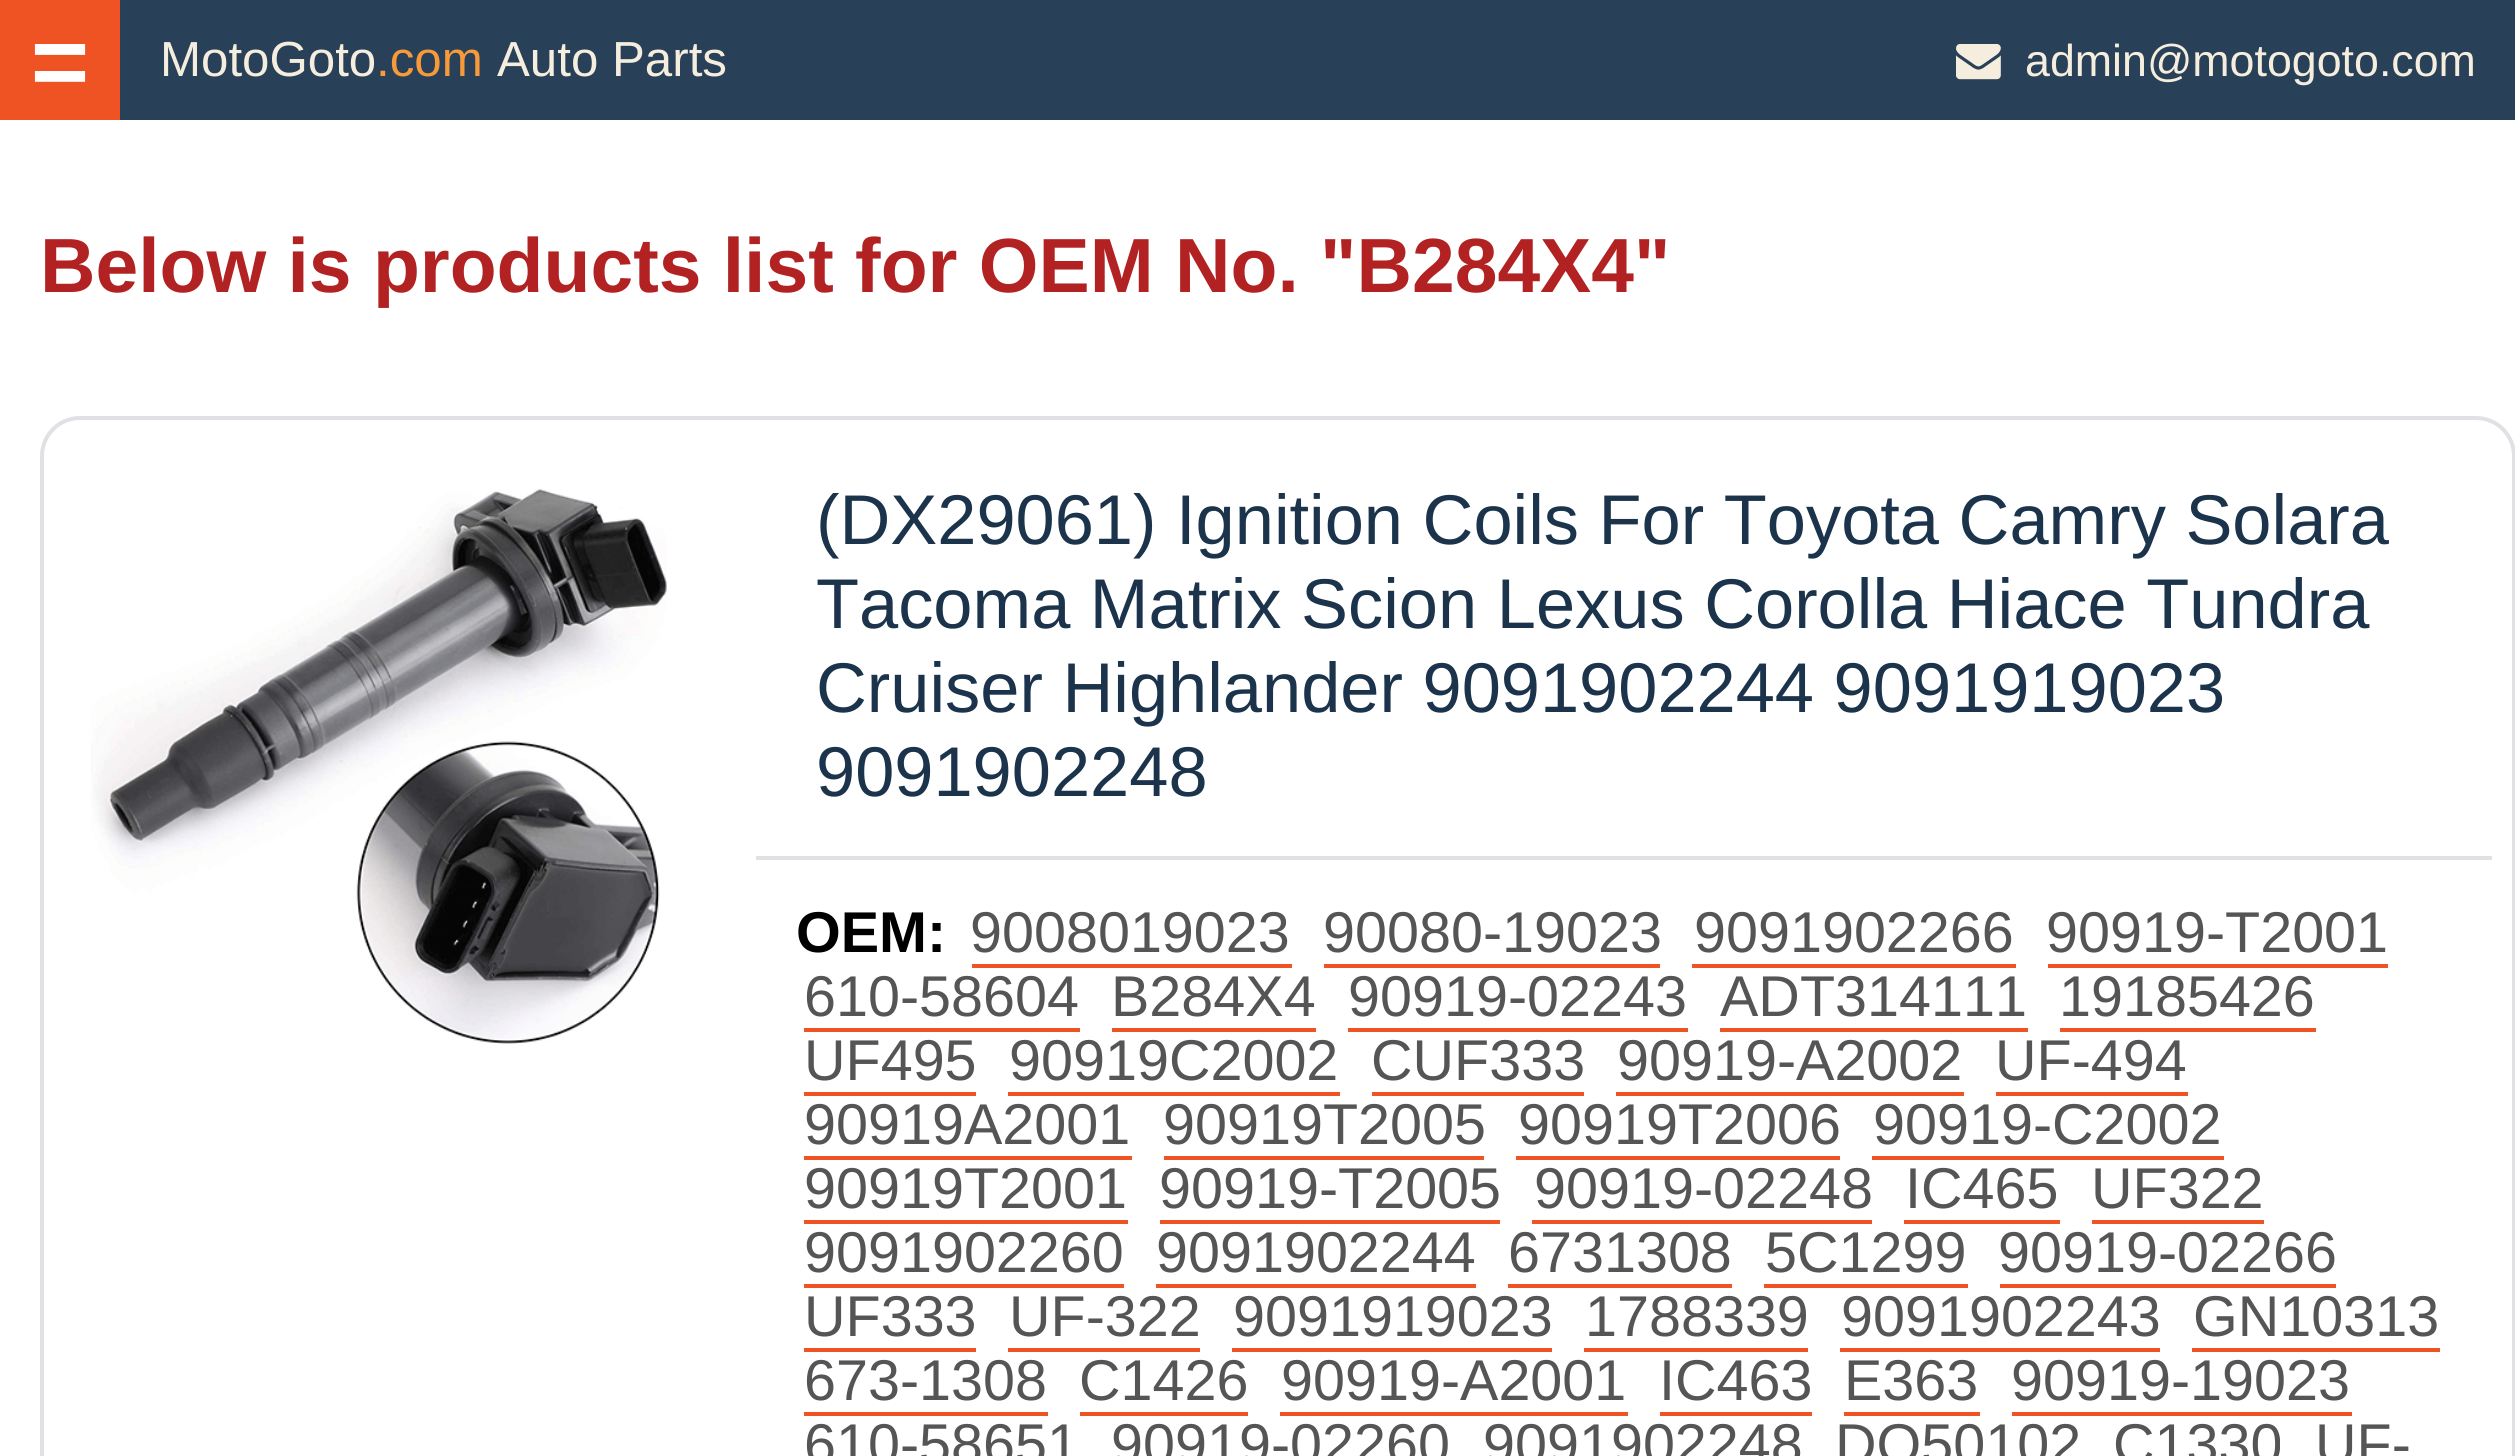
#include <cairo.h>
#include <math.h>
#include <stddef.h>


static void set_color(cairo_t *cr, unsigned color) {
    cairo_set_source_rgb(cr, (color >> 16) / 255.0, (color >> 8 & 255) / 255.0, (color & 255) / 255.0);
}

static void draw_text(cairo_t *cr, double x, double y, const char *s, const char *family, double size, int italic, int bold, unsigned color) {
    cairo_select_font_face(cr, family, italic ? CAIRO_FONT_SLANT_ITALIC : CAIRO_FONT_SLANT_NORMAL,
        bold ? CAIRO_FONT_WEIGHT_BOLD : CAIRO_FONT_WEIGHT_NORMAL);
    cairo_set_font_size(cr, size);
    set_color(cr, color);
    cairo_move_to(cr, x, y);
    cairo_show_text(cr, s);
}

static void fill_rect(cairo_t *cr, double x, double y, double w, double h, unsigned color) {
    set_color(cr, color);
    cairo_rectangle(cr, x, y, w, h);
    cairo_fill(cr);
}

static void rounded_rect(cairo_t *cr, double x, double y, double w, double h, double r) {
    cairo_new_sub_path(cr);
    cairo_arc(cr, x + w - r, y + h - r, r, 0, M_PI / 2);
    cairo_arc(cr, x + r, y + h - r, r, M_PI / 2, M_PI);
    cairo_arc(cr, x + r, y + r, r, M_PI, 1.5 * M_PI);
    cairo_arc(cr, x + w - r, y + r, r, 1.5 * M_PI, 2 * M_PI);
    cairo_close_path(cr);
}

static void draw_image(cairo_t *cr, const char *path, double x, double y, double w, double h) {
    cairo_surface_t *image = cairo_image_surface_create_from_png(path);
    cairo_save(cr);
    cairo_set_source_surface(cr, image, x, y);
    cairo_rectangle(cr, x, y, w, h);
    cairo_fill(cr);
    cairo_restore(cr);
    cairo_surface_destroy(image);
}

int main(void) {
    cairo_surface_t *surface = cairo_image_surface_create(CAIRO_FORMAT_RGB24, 2515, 1456);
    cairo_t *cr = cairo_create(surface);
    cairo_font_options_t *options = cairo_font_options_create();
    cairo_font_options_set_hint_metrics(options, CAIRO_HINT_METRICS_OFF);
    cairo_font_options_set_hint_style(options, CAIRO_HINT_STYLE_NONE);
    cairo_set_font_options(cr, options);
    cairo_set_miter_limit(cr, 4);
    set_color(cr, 0xFFFFFF);
    cairo_paint(cr);
    fill_rect(cr, 120, 0, 2395, 120, 0x284058);
    fill_rect(cr, 0, 0, 120, 120, 0xF05323);
    draw_text(cr, 30, 96, "=", "Liberation Mono", 100, 0, 1, 0xFFFFFF);
    draw_text(cr, 160, 76, "MotoGoto", "Liberation Sans", 49.25, 0, 0, 0xF5EEDE);
    draw_text(cr, 376, 76, ".com", "Liberation Sans", 49.25, 0, 0, 0xF89A3A);
    draw_text(cr, 497, 76, "Auto Parts", "Liberation Sans", 49.25, 0, 0, 0xF5EEDE);
    draw_image(cr, "assets/img1.png", 1956, 44, 45, 36);
    draw_text(cr, 2025, 76, "admin@motogoto.com", "Liberation Sans", 44.75, 0, 0, 0xF5EEDE);
    draw_text(cr, 40, 292, "Below is products list for OEM No. \"B284X4\"", "Liberation Sans", 76.8, 0, 1, 0xB22222);
    rounded_rect(cr, 42, 418, 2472, 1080, 38);
    set_color(cr, 0xDFE1E5);
    cairo_set_line_width(cr, 4);
    cairo_stroke(cr);
    draw_image(cr, "assets/img2.png", 91, 489, 576, 555);
    fill_rect(cr, 756, 856, 1736, 4, 0xDFE1E5);
    draw_text(cr, 816, 544, "(DX29061) Ignition Coils For Toyota Camry Solara", "Liberation Sans", 70.4, 0, 0, 0x1B334B);
    draw_text(cr, 816, 628, "Tacoma Matrix Scion Lexus Corolla Hiace Tundra", "Liberation Sans", 70.4, 0, 0, 0x1B334B);
    draw_text(cr, 816, 712, "Cruiser Highlander 9091902244 9091919023", "Liberation Sans", 70.4, 0, 0, 0x1B334B);
    draw_text(cr, 816, 796, "9091902248", "Liberation Sans", 70.4, 0, 0, 0x1B334B);
    draw_text(cr, 796, 952, "OEM:", "Liberation Sans", 57.5, 0, 1, 0x000000);
    draw_text(cr, 970, 952, "9008019023", "Liberation Sans", 57.5, 0, 0, 0x555555);
    fill_rect(cr, 972, 964, 320, 4, 0xF05323);
    draw_text(cr, 1323, 952, "90080-19023", "Liberation Sans", 57.5, 0, 0, 0x555555);
    fill_rect(cr, 1324, 964, 336, 4, 0xF05323);
    draw_text(cr, 1694, 952, "9091902266", "Liberation Sans", 57.5, 0, 0, 0x555555);
    fill_rect(cr, 1692, 964, 324, 4, 0xF05323);
    draw_text(cr, 2046, 952, "90919-T2001", "Liberation Sans", 57.5, 0, 0, 0x555555);
    fill_rect(cr, 2048, 964, 340, 4, 0xF05323);
    draw_text(cr, 804, 1016, "610-58604", "Liberation Sans", 57.5, 0, 0, 0x555555);
    fill_rect(cr, 804, 1028, 276, 4, 0xF05323);
    draw_text(cr, 1111, 1016, "B284X4", "Liberation Sans", 57.5, 0, 0, 0x555555);
    fill_rect(cr, 1112, 1028, 204, 4, 0xF05323);
    draw_text(cr, 1348, 1016, "90919-02243", "Liberation Sans", 57.5, 0, 0, 0x555555);
    fill_rect(cr, 1348, 1028, 340, 4, 0xF05323);
    draw_text(cr, 1720, 1016, "ADT314111", "Liberation Sans", 57.5, 0, 0, 0x555555);
    fill_rect(cr, 1720, 1028, 308, 4, 0xF05323);
    draw_text(cr, 2059, 1016, "19185426", "Liberation Sans", 57.5, 0, 0, 0x555555);
    fill_rect(cr, 2060, 1028, 256, 4, 0xF05323);
    draw_text(cr, 804, 1080, "UF495", "Liberation Sans", 57.5, 0, 0, 0x555555);
    fill_rect(cr, 804, 1092, 172, 4, 0xF05323);
    draw_text(cr, 1009, 1080, "90919C2002", "Liberation Sans", 57.5, 0, 0, 0x555555);
    fill_rect(cr, 1008, 1092, 332, 4, 0xF05323);
    draw_text(cr, 1371, 1080, "CUF333", "Liberation Sans", 57.5, 0, 0, 0x555555);
    fill_rect(cr, 1372, 1092, 212, 4, 0xF05323);
    draw_text(cr, 1617, 1080, "90919-A2002", "Liberation Sans", 57.5, 0, 0, 0x555555);
    fill_rect(cr, 1616, 1092, 348, 4, 0xF05323);
    draw_text(cr, 1995, 1080, "UF-494", "Liberation Sans", 57.5, 0, 0, 0x555555);
    fill_rect(cr, 1996, 1092, 192, 4, 0xF05323);
    draw_text(cr, 804, 1144, "90919A2001", "Liberation Sans", 57.5, 0, 0, 0x555555);
    fill_rect(cr, 804, 1156, 328, 4, 0xF05323);
    draw_text(cr, 1163, 1144, "90919T2005", "Liberation Sans", 57.5, 0, 0, 0x555555);
    fill_rect(cr, 1164, 1156, 320, 4, 0xF05323);
    draw_text(cr, 1518, 1144, "90919T2006", "Liberation Sans", 57.5, 0, 0, 0x555555);
    fill_rect(cr, 1516, 1156, 324, 4, 0xF05323);
    draw_text(cr, 1873, 1144, "90919-C2002", "Liberation Sans", 57.5, 0, 0, 0x555555);
    fill_rect(cr, 1872, 1156, 352, 4, 0xF05323);
    draw_text(cr, 804, 1208, "90919T2001", "Liberation Sans", 57.5, 0, 0, 0x555555);
    fill_rect(cr, 804, 1220, 324, 4, 0xF05323);
    draw_text(cr, 1159, 1208, "90919-T2005", "Liberation Sans", 57.5, 0, 0, 0x555555);
    fill_rect(cr, 1160, 1220, 340, 4, 0xF05323);
    draw_text(cr, 1534, 1208, "90919-02248", "Liberation Sans", 57.5, 0, 0, 0x555555);
    fill_rect(cr, 1532, 1220, 340, 4, 0xF05323);
    draw_text(cr, 1905, 1208, "IC465", "Liberation Sans", 57.5, 0, 0, 0x555555);
    fill_rect(cr, 1904, 1220, 156, 4, 0xF05323);
    draw_text(cr, 2091, 1208, "UF322", "Liberation Sans", 57.5, 0, 0, 0x555555);
    fill_rect(cr, 2092, 1220, 172, 4, 0xF05323);
    draw_text(cr, 804, 1272, "9091902260", "Liberation Sans", 57.5, 0, 0, 0x555555);
    fill_rect(cr, 804, 1284, 320, 4, 0xF05323);
    draw_text(cr, 1156, 1272, "9091902244", "Liberation Sans", 57.5, 0, 0, 0x555555);
    fill_rect(cr, 1156, 1284, 320, 4, 0xF05323);
    draw_text(cr, 1508, 1272, "6731308", "Liberation Sans", 57.5, 0, 0, 0x555555);
    fill_rect(cr, 1508, 1284, 224, 4, 0xF05323);
    draw_text(cr, 1765, 1272, "5C1299", "Liberation Sans", 57.5, 0, 0, 0x555555);
    fill_rect(cr, 1764, 1284, 204, 4, 0xF05323);
    draw_text(cr, 1998, 1272, "90919-02266", "Liberation Sans", 57.5, 0, 0, 0x555555);
    fill_rect(cr, 2000, 1284, 336, 4, 0xF05323);
    draw_text(cr, 804, 1336, "UF333", "Liberation Sans", 57.5, 0, 0, 0x555555);
    fill_rect(cr, 804, 1348, 172, 4, 0xF05323);
    draw_text(cr, 1009, 1336, "UF-322", "Liberation Sans", 57.5, 0, 0, 0x555555);
    fill_rect(cr, 1008, 1348, 192, 4, 0xF05323);
    draw_text(cr, 1233, 1336, "9091919023", "Liberation Sans", 57.5, 0, 0, 0x555555);
    fill_rect(cr, 1232, 1348, 320, 4, 0xF05323);
    draw_text(cr, 1585, 1336, "1788339", "Liberation Sans", 57.5, 0, 0, 0x555555);
    fill_rect(cr, 1584, 1348, 224, 4, 0xF05323);
    draw_text(cr, 1841, 1336, "9091902243", "Liberation Sans", 57.5, 0, 0, 0x555555);
    fill_rect(cr, 1840, 1348, 320, 4, 0xF05323);
    draw_text(cr, 2193, 1336, "GN10313", "Liberation Sans", 57.5, 0, 0, 0x555555);
    fill_rect(cr, 2192, 1348, 248, 4, 0xF05323);
    draw_text(cr, 804, 1400, "673-1308", "Liberation Sans", 57.5, 0, 0, 0x555555);
    fill_rect(cr, 804, 1412, 244, 4, 0xF05323);
    draw_text(cr, 1079, 1400, "C1426", "Liberation Sans", 57.5, 0, 0, 0x555555);
    fill_rect(cr, 1080, 1412, 168, 4, 0xF05323);
    draw_text(cr, 1281, 1400, "90919-A2001", "Liberation Sans", 57.5, 0, 0, 0x555555);
    fill_rect(cr, 1280, 1412, 348, 4, 0xF05323);
    draw_text(cr, 1659, 1400, "IC463", "Liberation Sans", 57.5, 0, 0, 0x555555);
    fill_rect(cr, 1660, 1412, 152, 4, 0xF05323);
    draw_text(cr, 1844, 1400, "E363", "Liberation Sans", 57.5, 0, 0, 0x555555);
    fill_rect(cr, 1844, 1412, 136, 4, 0xF05323);
    draw_text(cr, 2011, 1400, "90919-19023", "Liberation Sans", 57.5, 0, 0, 0x555555);
    fill_rect(cr, 2012, 1412, 340, 4, 0xF05323);
    draw_text(cr, 804, 1464, "610-58651", "Liberation Sans", 57.5, 0, 0, 0x555555);
    draw_text(cr, 1111, 1464, "90919-02260", "Liberation Sans", 57.5, 0, 0, 0x555555);
    draw_text(cr, 1483, 1464, "9091902248", "Liberation Sans", 57.5, 0, 0, 0x555555);
    draw_text(cr, 1835, 1464, "DQ50102", "Liberation Sans", 57.5, 0, 0, 0x555555);
    draw_text(cr, 2113, 1464, "C1330", "Liberation Sans", 57.5, 0, 0, 0x555555);
    draw_text(cr, 2315, 1464, "UF-", "Liberation Sans", 57.5, 0, 0, 0x555555);
    cairo_surface_write_to_png(surface, "output.png");
    cairo_font_options_destroy(options);
    cairo_destroy(cr);
    cairo_surface_destroy(surface);
    return 0;
}
